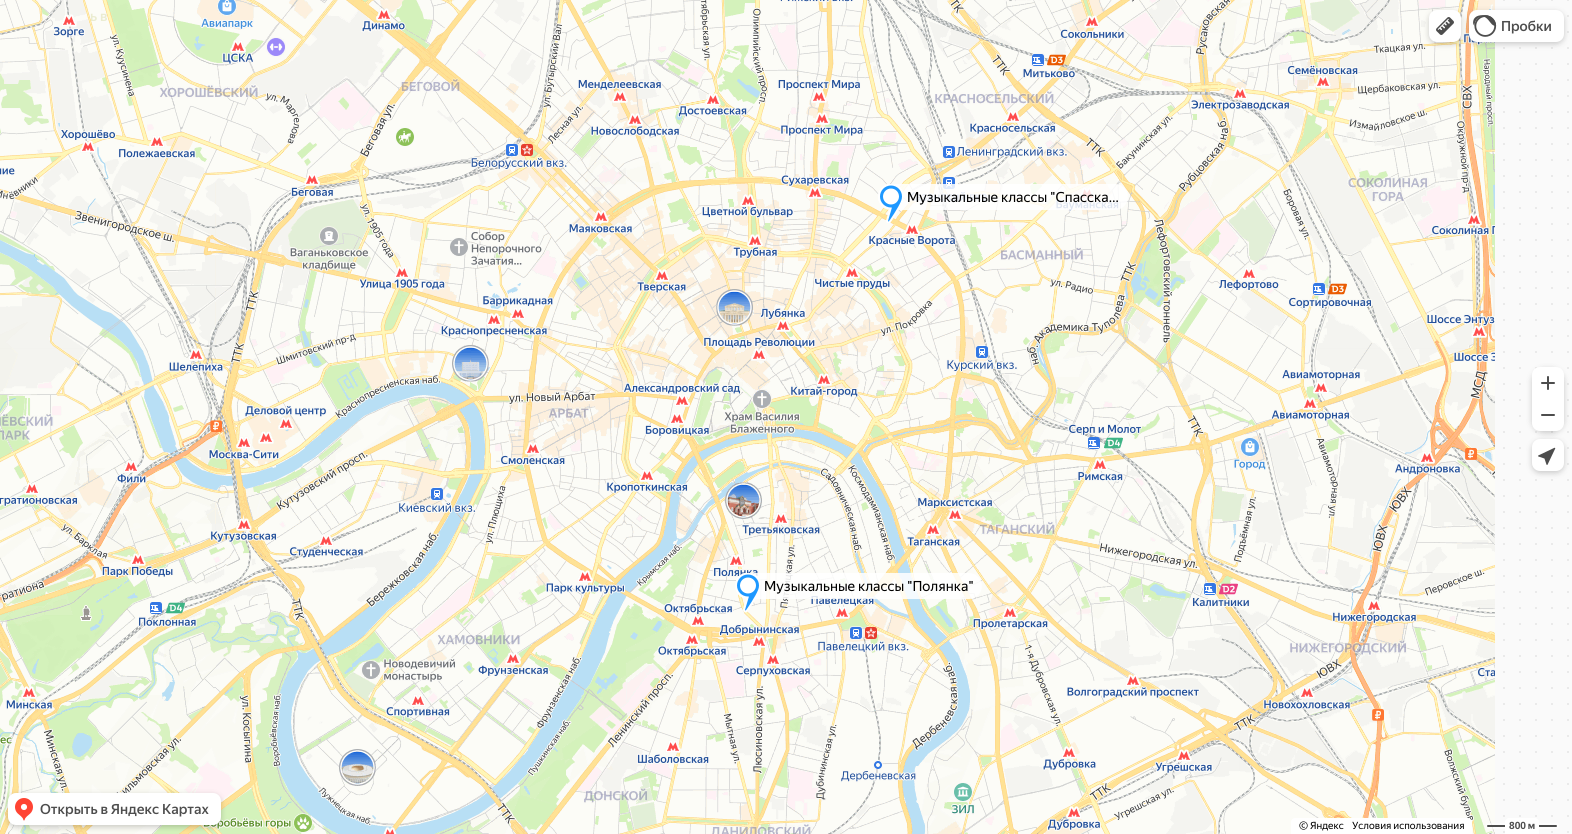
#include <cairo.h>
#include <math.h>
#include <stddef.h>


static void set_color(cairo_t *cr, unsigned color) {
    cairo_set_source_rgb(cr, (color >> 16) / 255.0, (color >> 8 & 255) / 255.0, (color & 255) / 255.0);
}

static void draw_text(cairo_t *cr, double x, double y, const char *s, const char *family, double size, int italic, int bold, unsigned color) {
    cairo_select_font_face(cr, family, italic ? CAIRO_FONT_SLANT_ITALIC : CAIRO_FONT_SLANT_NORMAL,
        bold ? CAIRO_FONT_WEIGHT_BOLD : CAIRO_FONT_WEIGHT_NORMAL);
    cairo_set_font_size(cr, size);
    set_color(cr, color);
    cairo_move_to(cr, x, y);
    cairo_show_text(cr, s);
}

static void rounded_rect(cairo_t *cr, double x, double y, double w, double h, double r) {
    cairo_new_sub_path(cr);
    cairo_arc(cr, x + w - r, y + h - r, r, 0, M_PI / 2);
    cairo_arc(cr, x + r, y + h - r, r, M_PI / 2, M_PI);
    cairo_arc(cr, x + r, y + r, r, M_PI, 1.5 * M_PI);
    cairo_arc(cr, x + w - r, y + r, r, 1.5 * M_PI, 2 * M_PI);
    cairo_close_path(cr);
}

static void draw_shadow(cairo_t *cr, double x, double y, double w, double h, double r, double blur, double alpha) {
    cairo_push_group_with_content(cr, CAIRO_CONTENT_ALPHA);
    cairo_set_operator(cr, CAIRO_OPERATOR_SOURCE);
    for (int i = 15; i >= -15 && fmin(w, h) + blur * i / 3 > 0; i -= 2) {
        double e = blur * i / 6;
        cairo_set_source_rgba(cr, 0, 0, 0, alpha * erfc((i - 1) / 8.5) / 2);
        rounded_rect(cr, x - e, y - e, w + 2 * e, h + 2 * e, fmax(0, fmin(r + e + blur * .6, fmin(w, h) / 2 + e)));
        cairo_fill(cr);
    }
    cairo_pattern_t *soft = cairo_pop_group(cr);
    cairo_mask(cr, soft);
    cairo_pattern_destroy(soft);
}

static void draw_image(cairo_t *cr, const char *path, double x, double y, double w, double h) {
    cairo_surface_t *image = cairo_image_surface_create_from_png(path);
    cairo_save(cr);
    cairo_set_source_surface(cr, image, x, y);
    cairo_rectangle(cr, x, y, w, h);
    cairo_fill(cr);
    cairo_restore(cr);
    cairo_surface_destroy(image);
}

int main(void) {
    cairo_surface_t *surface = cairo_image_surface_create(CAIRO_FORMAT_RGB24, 1572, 834);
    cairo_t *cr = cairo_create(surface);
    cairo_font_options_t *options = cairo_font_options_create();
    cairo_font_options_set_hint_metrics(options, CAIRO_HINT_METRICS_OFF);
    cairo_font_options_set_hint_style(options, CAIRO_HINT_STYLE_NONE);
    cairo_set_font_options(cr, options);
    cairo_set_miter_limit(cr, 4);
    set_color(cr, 0xFFFFFF);
    cairo_paint(cr);
    draw_image(cr, "assets/img1.png", 1495, 0, 77, 834);
    draw_image(cr, "assets/img8.png", 0, 0, 215, 92);
    draw_text(cr, 90, 21, "ь в", "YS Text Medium", 14, 0, 0, 0xEAECD1);
    draw_image(cr, "assets/img13.png", 1239, 0, 256, 92);
    set_color(cr, 0x000000);
    draw_shadow(cr, 1429, 12, 32, 32, 8, 3, 0.2);
    set_color(cr, 0xFFFFFF);
    rounded_rect(cr, 1429, 10, 32, 32, 8);
    cairo_fill(cr);
    draw_image(cr, "assets/img2.png", 1436, 17, 18, 18);
    set_color(cr, 0x000000);
    draw_shadow(cr, 1469, 12, 95, 32, 8, 3, 0.2);
    set_color(cr, 0xFFFFFF);
    rounded_rect(cr, 1469, 10, 95, 32, 8);
    cairo_fill(cr);
    draw_image(cr, "assets/img3.png", 1473, 15, 24, 22);
    draw_text(cr, 1501, 31, "Пробки", "YS Text Medium", 14, 0, 0, 0x4D4D4D);
    set_color(cr, 0x000000);
    draw_shadow(cr, 1532, 369, 32, 64, 12, 3, 0.2);
    set_color(cr, 0xFFFFFF);
    cairo_new_path(cr);
    cairo_move_to(cr, 1540, 367);
    cairo_line_to(cr, 1556, 367);
    cairo_curve_to(cr, 1560.5, 367, 1564, 370.5, 1564, 375);
    cairo_line_to(cr, 1564, 399);
    cairo_line_to(cr, 1532, 399);
    cairo_line_to(cr, 1532, 375);
    cairo_curve_to(cr, 1532, 370.5, 1535.5, 367, 1540, 367);
    cairo_close_path(cr);
    cairo_fill(cr);
    draw_image(cr, "assets/img4.png", 1541, 376, 14, 14);
    cairo_new_path(cr);
    cairo_move_to(cr, 1532, 399);
    cairo_line_to(cr, 1564, 399);
    cairo_line_to(cr, 1564, 423);
    cairo_curve_to(cr, 1564, 427.5, 1560.5, 431, 1556, 431);
    cairo_line_to(cr, 1540, 431);
    cairo_curve_to(cr, 1535.5, 431, 1532, 427.5, 1532, 423);
    cairo_close_path(cr);
    cairo_fill(cr);
    draw_image(cr, "assets/img5.png", 1541, 414, 14, 2);
    set_color(cr, 0x000000);
    draw_shadow(cr, 1532, 441, 32, 32, 8, 3, 0.2);
    set_color(cr, 0xFFFFFF);
    rounded_rect(cr, 1532, 439, 32, 32, 8);
    cairo_fill(cr);
    draw_image(cr, "assets/img6.png", 1538, 447, 18, 18);
    draw_image(cr, "assets/img26.png", 0, 604, 215, 230);
    draw_image(cr, "assets/img27.png", 215, 604, 256, 230);
    set_color(cr, 0x000000);
    draw_shadow(cr, 8, 795, 213, 32, 8, 3, 0.2);
    set_color(cr, 0xFFFFFF);
    rounded_rect(cr, 8, 793, 213, 32, 8);
    cairo_fill(cr);
    draw_image(cr, "assets/img7.png", 15, 798, 18, 23);
    draw_text(cr, 40, 814, "Открыть в Яндекс Картах", "YS Text Medium", 14, 0, 0, 0x4D4D4D);
    draw_image(cr, "assets/img31.png", 1239, 604, 256, 230);
    set_color(cr, 0xFFFFFF);
    cairo_new_path(cr);
    cairo_move_to(cr, 1295, 818);
    cairo_line_to(cr, 1468, 818);
    cairo_curve_to(cr, 1470, 818, 1472, 820, 1472, 822);
    cairo_line_to(cr, 1472, 834);
    cairo_line_to(cr, 1291, 834);
    cairo_line_to(cr, 1291, 822);
    cairo_curve_to(cr, 1291, 820, 1293, 818, 1295, 818);
    cairo_close_path(cr);
    cairo_fill(cr);
    draw_text(cr, 1299, 829, "© Яндекс", "YS Text", 10, 0, 0, 0x000000);
    draw_text(cr, 1352, 829, "Условия использования", "YS Text", 10, 0, 0, 0x000000);
    cairo_set_source_rgba(cr, 1, 1, 1, 0.6);
    rounded_rect(cr, 1485, 823, 74, 6, 3);
    cairo_fill(cr);
    set_color(cr, 0x4D4D4D);
    rounded_rect(cr, 1487, 825, 70, 2, 1);
    cairo_fill(cr);
    set_color(cr, 0xFFFFFF);
    cairo_new_path(cr);
    cairo_move_to(cr, 1509, 818);
    cairo_line_to(cr, 1535, 818);
    cairo_curve_to(cr, 1537, 818, 1539, 820, 1539, 822);
    cairo_line_to(cr, 1539, 834);
    cairo_line_to(cr, 1505, 834);
    cairo_line_to(cr, 1505, 822);
    cairo_curve_to(cr, 1505, 820, 1507, 818, 1509, 818);
    cairo_close_path(cr);
    cairo_fill(cr);
    draw_text(cr, 1509, 829, "800 м", "YS Text", 10, 0, 1, 0x4D4D4D);
    draw_image(cr, "assets/img9.png", 215, 0, 256, 92);
    draw_image(cr, "assets/img10.png", 471, 0, 256, 92);
    draw_image(cr, "assets/img11.png", 727, 0, 256, 92);
    draw_image(cr, "assets/img12.png", 983, 0, 256, 92);
    draw_image(cr, "assets/img14.png", 0, 92, 215, 256);
    draw_image(cr, "assets/img15.png", 215, 92, 256, 256);
    draw_image(cr, "assets/img16.png", 471, 92, 256, 256);
    draw_image(cr, "assets/img17.png", 727, 92, 256, 256);
    draw_image(cr, "assets/img18.png", 983, 92, 256, 256);
    draw_image(cr, "assets/img19.png", 1239, 92, 256, 256);
    draw_image(cr, "assets/img20.png", 0, 348, 215, 256);
    draw_image(cr, "assets/img21.png", 215, 348, 256, 256);
    draw_image(cr, "assets/img22.png", 471, 348, 256, 256);
    draw_image(cr, "assets/img23.png", 727, 348, 256, 256);
    draw_image(cr, "assets/img24.png", 983, 348, 256, 256);
    draw_image(cr, "assets/img25.png", 1239, 348, 256, 256);
    draw_image(cr, "assets/img28.png", 471, 604, 256, 230);
    draw_image(cr, "assets/img29.png", 727, 604, 256, 230);
    draw_image(cr, "assets/img30.png", 983, 604, 256, 230);
    cairo_set_source_rgba(cr, 1, 1, 1, 0.85);
    rounded_rect(cr, 878, 184, 250, 26, 13);
    cairo_fill(cr);
    draw_image(cr, "assets/img32.png", 878, 184, 25, 39);
    draw_text(cr, 907, 202, "Музыкальные классы \"Спасска…", "YS Text", 14, 0, 0, 0x000000);
    cairo_set_source_rgba(cr, 1, 1, 1, 0.85);
    rounded_rect(cr, 735, 573, 247, 26, 13);
    cairo_fill(cr);
    draw_image(cr, "assets/img33.png", 736, 573, 23, 40);
    draw_text(cr, 764, 591, "Музыкальные классы \"Полянка\"", "YS Text", 14, 0, 0, 0x000000);
    cairo_surface_write_to_png(surface, "output.png");
    cairo_font_options_destroy(options);
    cairo_destroy(cr);
    cairo_surface_destroy(surface);
    return 0;
}
